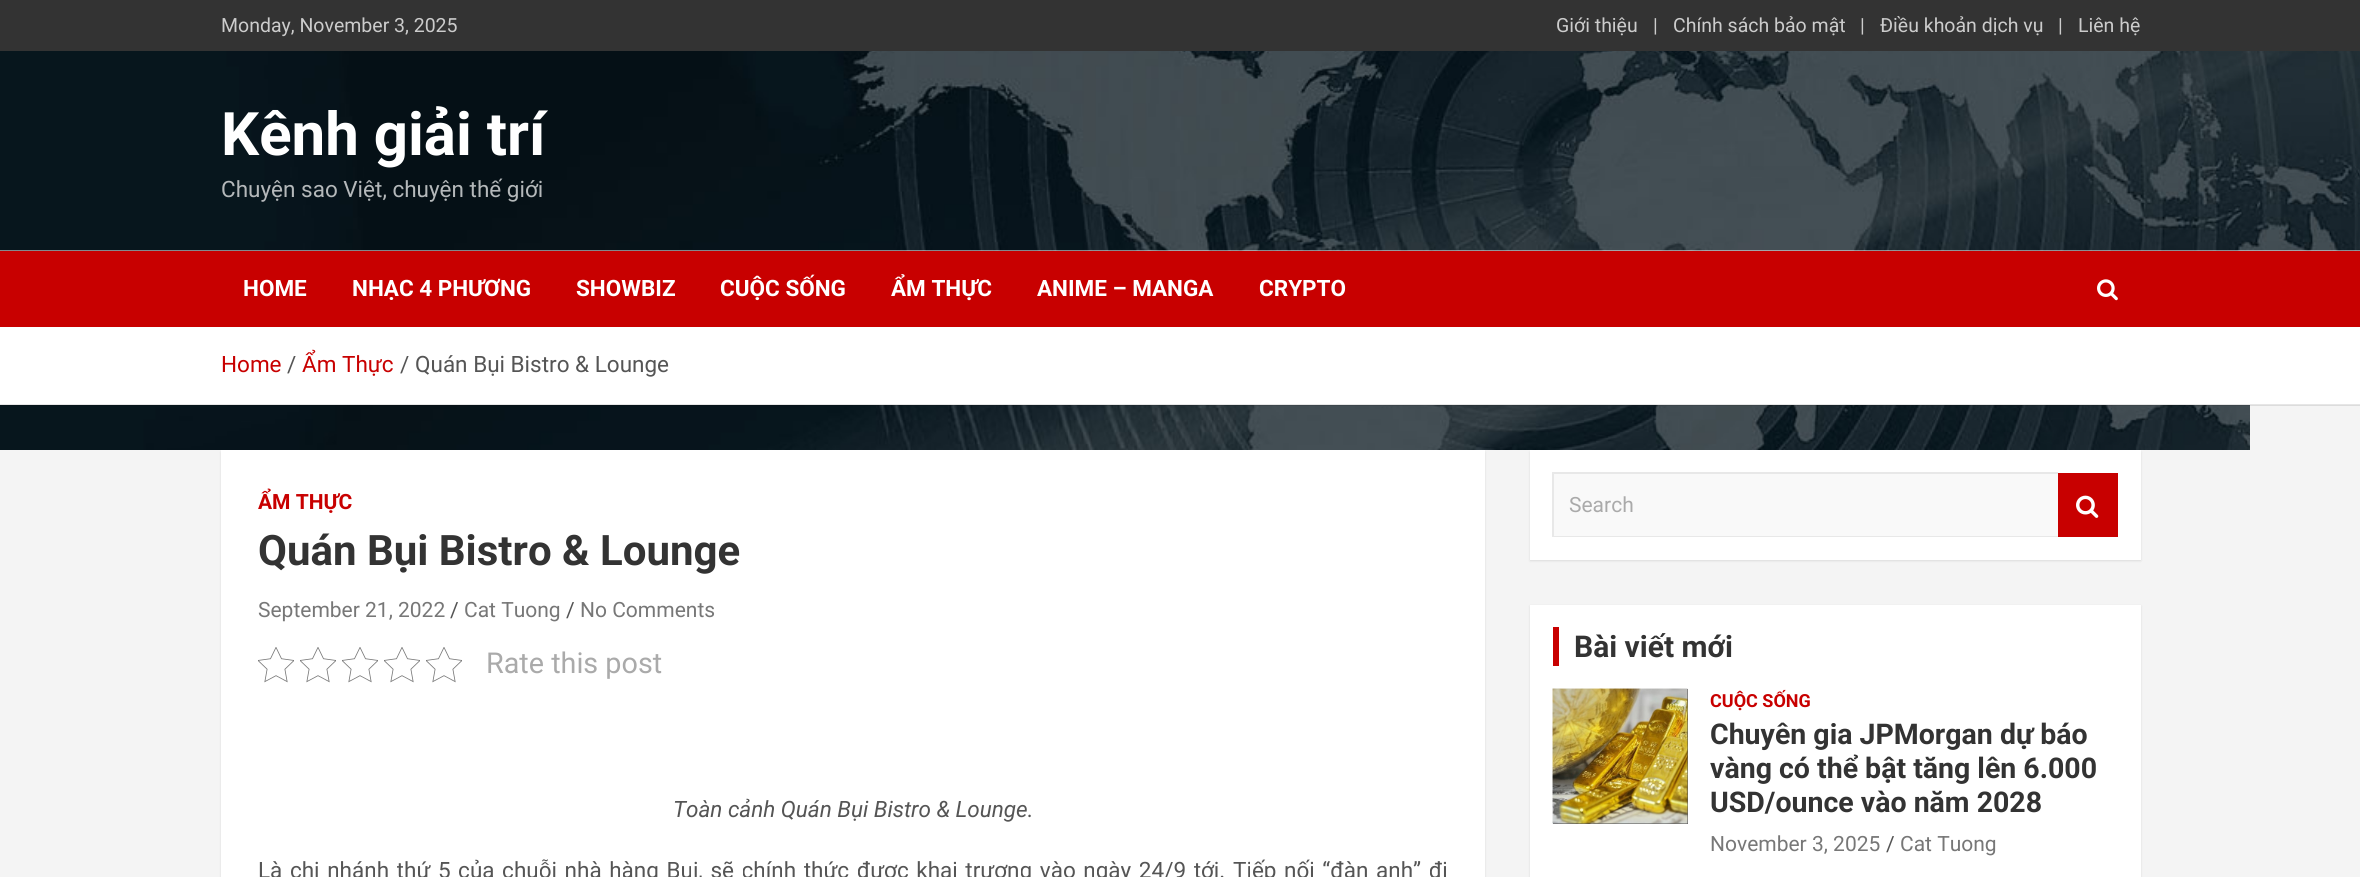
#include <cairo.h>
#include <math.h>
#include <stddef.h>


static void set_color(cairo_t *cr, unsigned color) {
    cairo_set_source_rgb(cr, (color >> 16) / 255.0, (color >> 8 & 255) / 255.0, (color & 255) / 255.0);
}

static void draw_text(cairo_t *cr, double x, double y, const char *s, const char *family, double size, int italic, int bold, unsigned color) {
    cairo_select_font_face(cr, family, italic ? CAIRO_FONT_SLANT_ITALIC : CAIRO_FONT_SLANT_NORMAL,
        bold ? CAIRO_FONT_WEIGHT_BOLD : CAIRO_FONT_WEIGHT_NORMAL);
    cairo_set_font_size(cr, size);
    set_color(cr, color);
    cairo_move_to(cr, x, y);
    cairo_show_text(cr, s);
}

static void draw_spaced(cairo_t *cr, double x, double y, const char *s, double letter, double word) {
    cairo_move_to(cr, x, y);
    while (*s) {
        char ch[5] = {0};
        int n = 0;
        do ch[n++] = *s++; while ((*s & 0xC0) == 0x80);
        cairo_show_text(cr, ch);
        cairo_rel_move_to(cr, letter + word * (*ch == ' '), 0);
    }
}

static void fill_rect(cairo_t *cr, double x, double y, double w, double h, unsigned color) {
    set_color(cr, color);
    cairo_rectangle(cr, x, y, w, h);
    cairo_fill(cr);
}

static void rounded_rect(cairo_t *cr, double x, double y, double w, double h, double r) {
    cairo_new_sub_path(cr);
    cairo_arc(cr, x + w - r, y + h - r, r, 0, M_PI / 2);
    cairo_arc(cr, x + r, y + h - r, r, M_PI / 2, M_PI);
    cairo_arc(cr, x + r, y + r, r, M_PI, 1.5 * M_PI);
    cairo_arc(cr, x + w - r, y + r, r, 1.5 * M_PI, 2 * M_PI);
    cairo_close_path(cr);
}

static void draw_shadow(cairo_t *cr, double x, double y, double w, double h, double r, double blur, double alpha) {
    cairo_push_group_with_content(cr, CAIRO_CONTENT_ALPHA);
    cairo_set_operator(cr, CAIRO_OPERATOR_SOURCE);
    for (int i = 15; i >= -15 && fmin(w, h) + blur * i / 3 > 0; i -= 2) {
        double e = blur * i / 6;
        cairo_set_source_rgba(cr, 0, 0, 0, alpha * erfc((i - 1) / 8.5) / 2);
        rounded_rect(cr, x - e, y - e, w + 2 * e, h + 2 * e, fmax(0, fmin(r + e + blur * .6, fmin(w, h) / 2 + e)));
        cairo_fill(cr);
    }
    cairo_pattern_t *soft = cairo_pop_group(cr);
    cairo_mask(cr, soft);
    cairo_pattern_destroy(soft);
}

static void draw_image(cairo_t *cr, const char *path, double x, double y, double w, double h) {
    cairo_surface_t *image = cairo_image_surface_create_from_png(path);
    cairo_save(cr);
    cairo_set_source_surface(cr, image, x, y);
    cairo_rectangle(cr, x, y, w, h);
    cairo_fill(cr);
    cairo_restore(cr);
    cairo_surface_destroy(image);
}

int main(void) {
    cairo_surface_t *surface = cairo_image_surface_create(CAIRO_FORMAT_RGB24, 2360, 877);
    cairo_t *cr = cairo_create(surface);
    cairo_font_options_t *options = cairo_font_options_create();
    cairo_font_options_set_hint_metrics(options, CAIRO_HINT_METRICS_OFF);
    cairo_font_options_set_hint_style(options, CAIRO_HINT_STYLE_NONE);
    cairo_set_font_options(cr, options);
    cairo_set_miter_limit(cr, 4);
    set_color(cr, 0xF4F4F4);
    cairo_paint(cr);
    draw_image(cr, "assets/img1.png", 0, 405, 2250, 45);
    fill_rect(cr, 0, 0, 2360, 51, 0x333333);
    draw_text(cr, 221, 32, "Monday, November 3, 2025", "Roboto", 19.5, 0, 0, 0xCCCCCC);
    draw_text(cr, 1556, 32, "Giới thiệu", "Roboto", 19.5, 0, 0, 0xCCCCCC);
    draw_text(cr, 1653, 32, "|", "Roboto", 19.5, 0, 0, 0xCCCCCC);
    draw_text(cr, 1673, 32, "Chính sách bảo mật", "Roboto", 19.5, 0, 0, 0xCCCCCC);
    draw_text(cr, 1860, 32, "|", "Roboto", 19.5, 0, 0, 0xCCCCCC);
    draw_text(cr, 1880, 32, "Điều khoản dịch vụ", "Roboto", 19.5, 0, 0, 0xCCCCCC);
    draw_text(cr, 2058, 32, "|", "Roboto", 19.5, 0, 0, 0xCCCCCC);
    draw_text(cr, 2078, 32, "Liên hệ", "Roboto", 19.5, 0, 0, 0xCCCCCC);
    fill_rect(cr, 0, 250, 2360, 1, 0xFFFFFF);
    draw_image(cr, "assets/img2.png", 0, 51, 2360, 200);
    draw_text(cr, 221, 155, "Kênh giải trí", "Roboto", 60, 0, 1, 0xFFFFFF);
    draw_text(cr, 221, 197, "Chuyện sao Việt, chuyện thế giới", "Roboto", 22.5, 0, 0, 0xB4B8BA);
    fill_rect(cr, 0, 251, 2360, 76, 0xC80000);
    draw_text(cr, 243, 296, "HOME", "Roboto", 22.5, 0, 1, 0xFFFFFF);
    draw_text(cr, 352, 296, "NHẠC 4 PHƯƠNG", "Roboto", 22.5, 0, 1, 0xFFFFFF);
    draw_text(cr, 576, 296, "SHOWBIZ", "Roboto", 22.5, 0, 1, 0xFFFFFF);
    draw_text(cr, 720, 296, "CUỘC SỐNG", "Roboto", 22.5, 0, 1, 0xFFFFFF);
    draw_text(cr, 891, 296, "ẨM THỰC", "Roboto", 22.5, 0, 1, 0xFFFFFF);
    draw_text(cr, 1037, 296, "ANIME – MANGA", "Roboto", 22.5, 0, 1, 0xFFFFFF);
    draw_text(cr, 1259, 296, "CRYPTO", "Roboto", 22.5, 0, 1, 0xFFFFFF);
    draw_image(cr, "assets/img3.png", 2097, 279, 21, 22);
    fill_rect(cr, 0, 327, 2360, 78, 0xFFFFFF);
    cairo_set_source_rgba(cr, 0, 0, 0, 0.1);
    cairo_rectangle(cr, 0, 404, 2360, 2);
    cairo_fill(cr);
    draw_text(cr, 221, 372, "Home", "Roboto", 22.5, 0, 0, 0xC80000);
    draw_text(cr, 287, 372, "/", "Roboto", 22.5, 0, 0, 0x555555);
    draw_text(cr, 302, 372, "Ẩm Thực", "Roboto", 22.5, 0, 0, 0xC80000);
    draw_text(cr, 400, 372, "/", "Roboto", 22.5, 0, 0, 0x555555);
    draw_text(cr, 415, 372, "Quán Bụi Bistro & Lounge", "Roboto", 22.5, 0, 0, 0x555555);
    set_color(cr, 0x000000);
    draw_shadow(cr, 221, 452, 1264, 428, 0, 1, 0.1);
    fill_rect(cr, 221, 450, 1264, 427, 0xFFFFFF);
    draw_text(cr, 258, 509, "ẨM THỰC", "Roboto", 21, 0, 1, 0xC80000);
    draw_text(cr, 258, 565, "Quán Bụi Bistro & Lounge", "Roboto", 42, 0, 1, 0x333333);
    draw_text(cr, 258, 617, "September 21, 2022", "Roboto", 21, 0, 0, 0x777777);
    draw_text(cr, 450, 617, "/", "Roboto", 21, 0, 0, 0x555555);
    draw_text(cr, 464, 617, "Cat Tuong", "Roboto", 21, 0, 0, 0x777777);
    draw_text(cr, 566, 617, "/", "Roboto", 21, 0, 0, 0x555555);
    draw_text(cr, 580, 617, "No Comments", "Roboto", 21, 0, 0, 0x777777);
    draw_image(cr, "assets/img4.png", 258, 647, 36, 36);
    draw_image(cr, "assets/img4.png", 300, 647, 36, 36);
    draw_image(cr, "assets/img4.png", 342, 647, 36, 36);
    draw_image(cr, "assets/img4.png", 384, 647, 36, 36);
    draw_image(cr, "assets/img4.png", 426, 647, 36, 36);
    draw_text(cr, 486, 673, "Rate this post", "Roboto", 28.75, 0, 0, 0xAAAAAA);
    draw_text(cr, 673, 817, "Toàn cảnh Quán Bụi Bistro & Lounge.", "Roboto", 22.5, 1, 0, 0x555555);
    cairo_select_font_face(cr, "Roboto", CAIRO_FONT_SLANT_NORMAL, CAIRO_FONT_WEIGHT_NORMAL);
    draw_spaced(cr, 258, 878, "Là chi nhánh thứ 5 của chuỗi nhà hàng Bụi, sẽ chính thức được khai trương vào ngày 24/9 tới.", 0, 2);
    draw_spaced(cr, 1233, 878, "Tiếp nối “đàn anh” đi", 0, 2);
    set_color(cr, 0x000000);
    draw_shadow(cr, 1530, 452, 611, 109, 0, 1, 0.1);
    fill_rect(cr, 1530, 450, 611, 110, 0xFFFFFF);
    fill_rect(cr, 1554, 474, 504, 62, 0xF9F9F9);
    set_color(cr, 0xE8E8E8);
    cairo_new_path(cr);
    cairo_move_to(cr, 1552, 472);
    cairo_line_to(cr, 2058, 472);
    cairo_line_to(cr, 2058, 474);
    cairo_line_to(cr, 1554, 474);
    cairo_close_path(cr);
    cairo_fill(cr);
    cairo_new_path(cr);
    cairo_move_to(cr, 2058, 537);
    cairo_line_to(cr, 1552, 537);
    cairo_line_to(cr, 1554, 536);
    cairo_line_to(cr, 2058, 536);
    cairo_close_path(cr);
    cairo_fill(cr);
    cairo_set_source_rgba(cr, 0, 0, 0, 0.09);
    cairo_new_path(cr);
    cairo_move_to(cr, 1552, 537);
    cairo_line_to(cr, 1552, 472);
    cairo_line_to(cr, 1554, 474);
    cairo_line_to(cr, 1554, 536);
    cairo_close_path(cr);
    cairo_fill(cr);
    draw_text(cr, 1569, 512, "Search", "Roboto", 21, 0, 0, 0xAAAAAA);
    fill_rect(cr, 2058, 473, 60, 64, 0xC80000);
    draw_image(cr, "assets/img5.png", 2076, 495, 23, 23);
    set_color(cr, 0x000000);
    draw_shadow(cr, 1530, 606, 611, 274, 0, 1, 0.1);
    fill_rect(cr, 1530, 605, 611, 272, 0xFFFFFF);
    fill_rect(cr, 1553, 627, 6, 39, 0xC80000);
    draw_text(cr, 1574, 657, "Bài viết mới", "Roboto", 30, 0, 1, 0x333333);
    fill_rect(cr, 1553, 689, 135, 135, 0x555555);
    draw_image(cr, "assets/img6.png", 1552, 688, 136, 136);
    draw_text(cr, 1710, 707, "CUỘC SỐNG", "Roboto", 18, 0, 1, 0xC80000);
    draw_text(cr, 1710, 744, "Chuyên gia JPMorgan dự báo", "Roboto", 28.5, 0, 1, 0x333333);
    draw_text(cr, 1710, 778, "vàng có thể bật tăng lên 6.000", "Roboto", 28.5, 0, 1, 0x333333);
    draw_text(cr, 1710, 812, "USD/ounce vào năm 2028", "Roboto", 28.5, 0, 1, 0x333333);
    draw_text(cr, 1710, 851, "November 3, 2025", "Roboto", 21, 0, 0, 0x777777);
    draw_text(cr, 1886, 851, "/", "Roboto", 21, 0, 0, 0x555555);
    draw_text(cr, 1900, 851, "Cat Tuong", "Roboto", 21, 0, 0, 0x777777);
    cairo_surface_write_to_png(surface, "output.png");
    cairo_font_options_destroy(options);
    cairo_destroy(cr);
    cairo_surface_destroy(surface);
    return 0;
}
